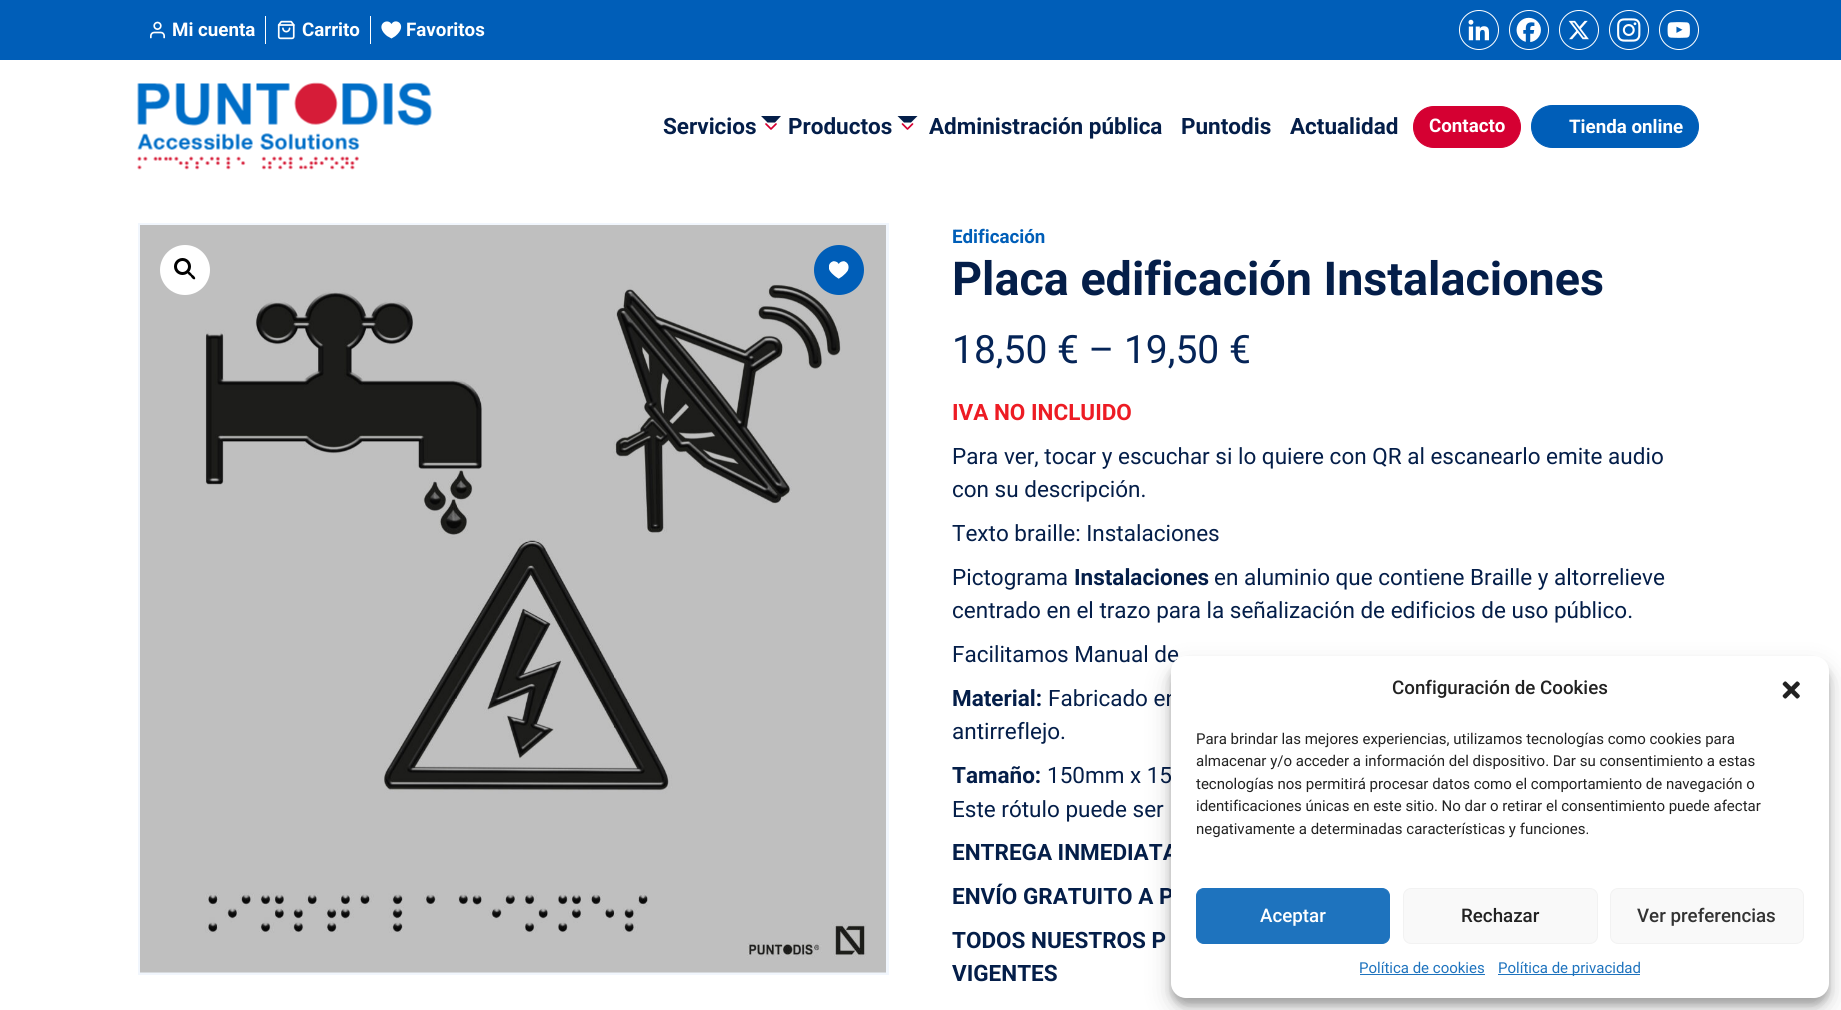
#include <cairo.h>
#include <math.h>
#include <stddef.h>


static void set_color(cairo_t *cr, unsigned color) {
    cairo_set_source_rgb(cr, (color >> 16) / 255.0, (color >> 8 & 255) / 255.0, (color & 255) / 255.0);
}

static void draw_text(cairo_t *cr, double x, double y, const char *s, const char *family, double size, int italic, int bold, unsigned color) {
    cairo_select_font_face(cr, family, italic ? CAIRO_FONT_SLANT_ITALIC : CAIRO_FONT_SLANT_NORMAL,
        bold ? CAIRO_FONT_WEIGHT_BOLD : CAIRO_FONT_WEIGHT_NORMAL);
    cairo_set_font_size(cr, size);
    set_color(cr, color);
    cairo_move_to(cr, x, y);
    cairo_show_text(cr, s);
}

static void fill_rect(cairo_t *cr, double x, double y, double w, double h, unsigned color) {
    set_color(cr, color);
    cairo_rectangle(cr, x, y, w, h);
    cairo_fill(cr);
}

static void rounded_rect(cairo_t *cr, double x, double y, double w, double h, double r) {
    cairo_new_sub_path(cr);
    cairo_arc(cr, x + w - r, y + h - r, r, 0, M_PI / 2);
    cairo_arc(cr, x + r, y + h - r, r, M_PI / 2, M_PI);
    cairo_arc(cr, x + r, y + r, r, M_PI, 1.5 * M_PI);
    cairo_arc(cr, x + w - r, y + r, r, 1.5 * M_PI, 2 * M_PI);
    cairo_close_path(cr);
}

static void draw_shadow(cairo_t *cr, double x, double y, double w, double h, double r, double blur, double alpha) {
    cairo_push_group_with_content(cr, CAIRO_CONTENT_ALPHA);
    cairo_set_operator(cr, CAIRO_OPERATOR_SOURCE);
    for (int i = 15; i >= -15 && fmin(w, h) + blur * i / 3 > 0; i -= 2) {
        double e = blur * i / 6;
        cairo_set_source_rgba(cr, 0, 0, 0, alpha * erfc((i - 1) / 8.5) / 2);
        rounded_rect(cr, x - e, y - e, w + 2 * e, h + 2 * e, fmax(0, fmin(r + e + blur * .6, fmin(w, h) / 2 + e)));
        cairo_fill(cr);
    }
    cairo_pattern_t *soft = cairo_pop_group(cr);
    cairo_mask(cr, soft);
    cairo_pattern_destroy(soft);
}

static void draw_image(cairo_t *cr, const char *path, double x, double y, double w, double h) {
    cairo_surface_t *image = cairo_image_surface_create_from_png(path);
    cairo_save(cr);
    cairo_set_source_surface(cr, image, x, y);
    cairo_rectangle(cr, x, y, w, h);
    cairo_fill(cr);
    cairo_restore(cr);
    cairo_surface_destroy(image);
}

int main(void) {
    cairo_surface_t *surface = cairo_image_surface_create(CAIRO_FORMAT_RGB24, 1841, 1010);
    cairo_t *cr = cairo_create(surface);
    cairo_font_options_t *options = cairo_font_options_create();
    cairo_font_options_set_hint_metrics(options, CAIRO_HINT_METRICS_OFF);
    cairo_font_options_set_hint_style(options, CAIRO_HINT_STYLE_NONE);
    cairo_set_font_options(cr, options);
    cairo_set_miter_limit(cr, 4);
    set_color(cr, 0xFFFFFF);
    cairo_paint(cr);
    fill_rect(cr, 0, 0, 1841, 60, 0x005EB8);
    draw_image(cr, "assets/img1.png", 150, 21, 15, 18);
    draw_text(cr, 172, 36, "Mi cuenta", "Roboto", 18.75, 0, 1, 0xFFFFFF);
    fill_rect(cr, 265, 16, 1, 28, 0xFFFFFF);
    draw_image(cr, "assets/img2.png", 277, 20, 18, 20);
    draw_text(cr, 302, 36, "Carrito", "Roboto", 18.75, 0, 1, 0xFFFFFF);
    fill_rect(cr, 370, 16, 1, 28, 0xFFFFFF);
    cairo_new_path(cr);
    cairo_move_to(cr, 391.5, 38.5);
    cairo_line_to(cr, 387, 36);
    cairo_curve_to(cr, 374, 25.5, 387, 17, 391.5, 24);
    cairo_curve_to(cr, 395.5, 17, 408.5, 25, 395.5, 36);
    cairo_close_path(cr);
    cairo_fill(cr);
    draw_text(cr, 406, 36, "Favoritos", "Roboto", 18.75, 0, 1, 0xFFFFFF);
    cairo_new_path(cr);
    cairo_arc(cr, 1479, 30, 19.5, 0, 2 * M_PI);
    cairo_set_line_width(cr, 1);
    cairo_stroke(cr);
    draw_image(cr, "assets/img3.png", 1468, 19, 21, 22);
    cairo_arc(cr, 1529, 30, 19.5, 0, 2 * M_PI);
    cairo_stroke(cr);
    draw_image(cr, "assets/img4.png", 1516, 17, 25, 25);
    cairo_arc(cr, 1579, 30, 19.5, 0, 2 * M_PI);
    cairo_stroke(cr);
    draw_image(cr, "assets/img5.png", 1568, 20, 21, 20);
    cairo_arc(cr, 1629, 30, 19.5, 0, 2 * M_PI);
    cairo_stroke(cr);
    draw_image(cr, "assets/img6.png", 1617, 18, 24, 24);
    cairo_arc(cr, 1679, 30, 19.5, 0, 2 * M_PI);
    cairo_stroke(cr);
    draw_image(cr, "assets/img7.png", 1667, 22, 23, 16);
    draw_image(cr, "assets/img8.png", 137, 82, 295, 88);
    draw_text(cr, 663, 134, "Servicios", "Roboto", 22.5, 0, 1, 0x041E49);
    cairo_new_path(cr);
    cairo_move_to(cr, 766, 124);
    cairo_line_to(cr, 771, 129);
    cairo_line_to(cr, 776, 124);
    set_color(cr, 0xD50032);
    cairo_set_line_width(cr, 1.7);
    cairo_set_line_cap(cr, CAIRO_LINE_CAP_ROUND);
    cairo_set_line_join(cr, CAIRO_LINE_JOIN_ROUND);
    cairo_stroke(cr);
    set_color(cr, 0x041E49);
    cairo_new_path(cr);
    cairo_move_to(cr, 761, 116);
    cairo_line_to(cr, 781, 116);
    cairo_line_to(cr, 775, 122.5);
    cairo_line_to(cr, 767.5, 122.5);
    cairo_close_path(cr);
    cairo_fill(cr);
    draw_text(cr, 788, 134, "Productos", "Roboto", 22.5, 0, 1, 0x041E49);
    cairo_new_path(cr);
    cairo_move_to(cr, 902.5, 124);
    cairo_line_to(cr, 907.5, 129);
    cairo_line_to(cr, 912.5, 124);
    set_color(cr, 0xD50032);
    cairo_stroke(cr);
    set_color(cr, 0x041E49);
    cairo_new_path(cr);
    cairo_move_to(cr, 897.5, 116);
    cairo_line_to(cr, 917.5, 116);
    cairo_line_to(cr, 911, 122.5);
    cairo_line_to(cr, 904, 122.5);
    cairo_close_path(cr);
    cairo_fill(cr);
    draw_text(cr, 929, 134, "Administración pública", "Roboto", 22.5, 0, 1, 0x041E49);
    draw_text(cr, 1181, 134, "Puntodis", "Roboto", 22.5, 0, 1, 0x041E49);
    draw_text(cr, 1290, 134, "Actualidad", "Roboto", 22.5, 0, 1, 0x041E49);
    set_color(cr, 0xD50032);
    rounded_rect(cr, 1413.5, 106.5, 107, 41, 20.5);
    cairo_fill_preserve(cr);
    cairo_set_line_width(cr, 1);
    cairo_set_line_cap(cr, CAIRO_LINE_CAP_BUTT);
    cairo_set_line_join(cr, CAIRO_LINE_JOIN_MITER);
    cairo_stroke(cr);
    draw_text(cr, 1429, 132, "Contacto", "Roboto", 18.75, 0, 1, 0xFFFFFF);
    set_color(cr, 0x005EB8);
    rounded_rect(cr, 1531.5, 105.5, 167, 42, 21);
    cairo_fill_preserve(cr);
    cairo_stroke(cr);
    draw_text(cr, 1569, 133, "Tienda online", "Roboto", 18.75, 0, 1, 0xFFFFFF);
    cairo_rectangle(cr, 139.5, 224.5, 748, 749);
    set_color(cr, 0xF1F6FD);
    cairo_set_line_width(cr, 3);
    cairo_stroke(cr);
    draw_image(cr, "assets/img9.png", 140, 225, 746, 748);
    set_color(cr, 0xFFFFFF);
    cairo_arc(cr, 185, 270, 25, 0, 2 * M_PI);
    cairo_fill(cr);
    cairo_arc(cr, 182.5, 266.5, 7, 0, 2 * M_PI);
    set_color(cr, 0x000000);
    cairo_stroke(cr);
    cairo_new_path(cr);
    cairo_move_to(cr, 187.5, 272);
    cairo_curve_to(cr, 189, 270.5, 191.5, 273.5, 192, 274.5);
    cairo_curve_to(cr, 193, 275, 196, 277.5, 195, 279);
    cairo_curve_to(cr, 193.5, 280.5, 191, 277, 190.5, 276);
    cairo_curve_to(cr, 189.5, 275.5, 186.5, 273, 187.5, 272);
    cairo_close_path(cr);
    cairo_fill(cr);
    set_color(cr, 0x005EB8);
    cairo_arc(cr, 839, 270, 25, 0, 2 * M_PI);
    cairo_fill(cr);
    draw_image(cr, "assets/img10.png", 829, 261, 20, 18);
    draw_text(cr, 952, 243, "Edificación", "Roboto", 18.75, 0, 1, 0x005EB8);
    draw_text(cr, 952, 295, "Placa edificación Instalaciones", "Roboto", 46.7, 0, 1, 0x041E49);
    draw_text(cr, 952, 363, "18,50 € – 19,50 €", "Roboto", 39, 0, 0, 0x052457);
    draw_text(cr, 952, 420, "IVA NO INCLUIDO", "Roboto", 22.5, 0, 1, 0xED1C24);
    draw_text(cr, 952, 464, "Para ver, tocar y escuchar si lo quiere con QR al escanearlo emite audio", "Roboto", 22.5, 0, 0, 0x041E49);
    draw_text(cr, 952, 497, "con su descripción.", "Roboto", 22.5, 0, 0, 0x041E49);
    draw_text(cr, 952, 541, "Texto braille: Instalaciones", "Roboto", 22.5, 0, 0, 0x041E49);
    draw_text(cr, 952, 585, "Pictograma", "Roboto", 22.5, 0, 0, 0x041E49);
    draw_text(cr, 1074, 585, "Instalaciones", "Roboto", 22.5, 0, 1, 0x041E49);
    draw_text(cr, 1214, 585, "en aluminio que contiene Braille y altorrelieve", "Roboto", 22.5, 0, 0, 0x041E49);
    draw_text(cr, 952, 618, "centrado en el trazo para la señalización de edificios de uso público.", "Roboto", 22.5, 0, 0, 0x041E49);
    draw_text(cr, 952, 662, "Facilitamos Manual de", "Roboto", 22.5, 0, 0, 0x041E49);
    draw_text(cr, 952, 706, "Material:", "Roboto", 22.5, 0, 1, 0x041E49);
    draw_text(cr, 1048, 706, "Fabricado en", "Roboto", 22.5, 0, 0, 0x041E49);
    draw_text(cr, 952, 739, "antirreflejo.", "Roboto", 22.5, 0, 0, 0x041E49);
    draw_text(cr, 952, 783, "Tamaño:", "Roboto", 22.5, 0, 1, 0x041E49);
    draw_text(cr, 1047, 783, "150mm x 15", "Roboto", 22.5, 0, 0, 0x041E49);
    draw_text(cr, 952, 817, "Este rótulo puede ser", "Roboto", 22.5, 0, 0, 0x041E49);
    draw_text(cr, 952, 860, "ENTREGA INMEDIATA", "Roboto", 22.5, 0, 1, 0x041E49);
    draw_text(cr, 952, 904, "ENVÍO GRATUITO A P", "Roboto", 22.5, 0, 1, 0x041E49);
    draw_text(cr, 952, 948, "TODOS NUESTROS P", "Roboto", 22.5, 0, 1, 0x041E49);
    draw_text(cr, 952, 981, "VIGENTES", "Roboto", 22.5, 0, 1, 0x041E49);
    set_color(cr, 0x000000);
    draw_shadow(cr, 1171, 664, 658, 341, 15, 4, 0.23);
    draw_shadow(cr, 1171, 669, 658, 341, 15, 12.5, 0.19);
    set_color(cr, 0xFFFFFF);
    rounded_rect(cr, 1171, 656, 658, 342, 15);
    cairo_fill(cr);
    draw_text(cr, 1392, 694, "Configuración de Cookies", "Roboto Medium", 18.75, 0, 0, 0x222222);
    draw_image(cr, "assets/img11.png", 1782, 681, 18, 18);
    draw_text(cr, 1196, 744, "Para brindar las mejores experiencias, utilizamos tecnologías como cookies para", "Roboto", 15, 0, 0, 0x222222);
    draw_text(cr, 1196, 766, "almacenar y/o acceder a información del dispositivo. Dar su consentimiento a estas", "Roboto", 15, 0, 0, 0x222222);
    draw_text(cr, 1196, 789, "tecnologías nos permitirá procesar datos como el comportamiento de navegación o", "Roboto", 15, 0, 0, 0x222222);
    draw_text(cr, 1196, 811, "identificaciones únicas en este sitio. No dar o retirar el consentimiento puede afectar", "Roboto", 15, 0, 0, 0x222222);
    draw_text(cr, 1196, 834, "negativamente a determinadas características y funciones.", "Roboto", 15, 0, 0, 0x222222);
    set_color(cr, 0x1E73BE);
    rounded_rect(cr, 1196.5, 888.5, 193, 55, 7.5);
    cairo_fill_preserve(cr);
    cairo_set_line_width(cr, 1);
    cairo_stroke(cr);
    draw_text(cr, 1260, 922, "Aceptar", "Roboto Medium", 18.75, 0, 0, 0xFFFFFF);
    set_color(cr, 0xF9F9F9);
    rounded_rect(cr, 1403.5, 888.5, 194, 55, 7.5);
    cairo_fill_preserve(cr);
    set_color(cr, 0xF2F2F2);
    cairo_stroke(cr);
    draw_text(cr, 1461, 922, "Rechazar", "Roboto Medium", 18.75, 0, 0, 0x222222);
    set_color(cr, 0xF9F9F9);
    rounded_rect(cr, 1610.5, 888.5, 193, 55, 7.5);
    cairo_fill_preserve(cr);
    set_color(cr, 0xF2F2F2);
    cairo_stroke(cr);
    draw_text(cr, 1637, 922, "Ver preferencias", "Roboto Medium", 18.75, 0, 0, 0x333333);
    draw_text(cr, 1359, 973, "Política de cookies", "Roboto", 15, 0, 0, 0x1E73BE);
    fill_rect(cr, 1360, 974, 125, 1, 0x1E73BE);
    fill_rect(cr, 1498, 974, 142, 1, 0x1E73BE);
    draw_text(cr, 1498, 973, "Política de privacidad", "Roboto", 15, 0, 0, 0x1E73BE);
    cairo_surface_write_to_png(surface, "output.png");
    cairo_font_options_destroy(options);
    cairo_destroy(cr);
    cairo_surface_destroy(surface);
    return 0;
}
